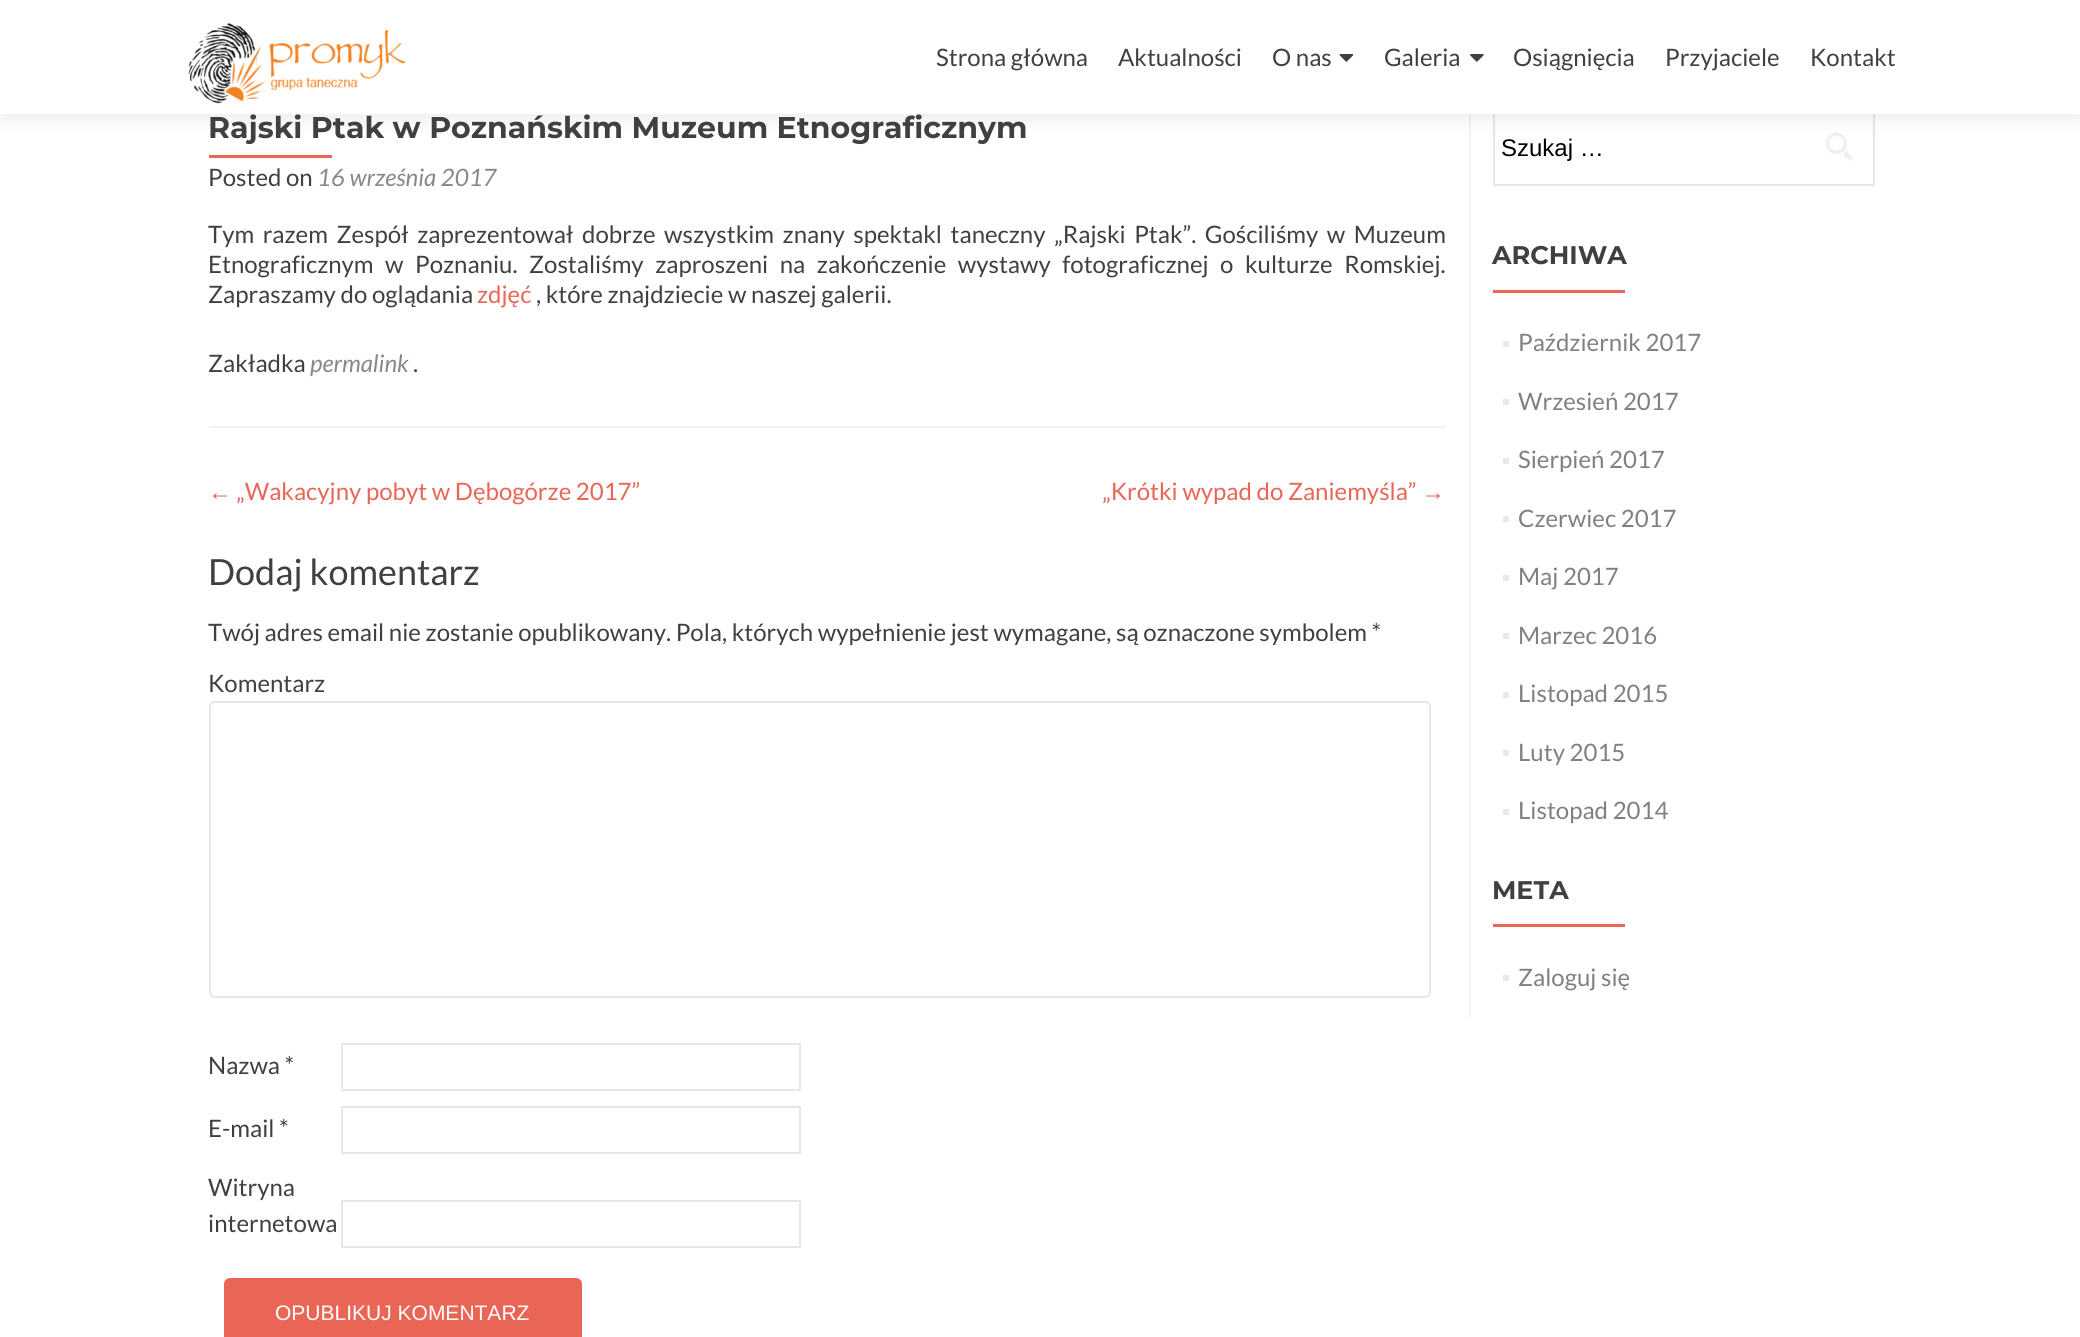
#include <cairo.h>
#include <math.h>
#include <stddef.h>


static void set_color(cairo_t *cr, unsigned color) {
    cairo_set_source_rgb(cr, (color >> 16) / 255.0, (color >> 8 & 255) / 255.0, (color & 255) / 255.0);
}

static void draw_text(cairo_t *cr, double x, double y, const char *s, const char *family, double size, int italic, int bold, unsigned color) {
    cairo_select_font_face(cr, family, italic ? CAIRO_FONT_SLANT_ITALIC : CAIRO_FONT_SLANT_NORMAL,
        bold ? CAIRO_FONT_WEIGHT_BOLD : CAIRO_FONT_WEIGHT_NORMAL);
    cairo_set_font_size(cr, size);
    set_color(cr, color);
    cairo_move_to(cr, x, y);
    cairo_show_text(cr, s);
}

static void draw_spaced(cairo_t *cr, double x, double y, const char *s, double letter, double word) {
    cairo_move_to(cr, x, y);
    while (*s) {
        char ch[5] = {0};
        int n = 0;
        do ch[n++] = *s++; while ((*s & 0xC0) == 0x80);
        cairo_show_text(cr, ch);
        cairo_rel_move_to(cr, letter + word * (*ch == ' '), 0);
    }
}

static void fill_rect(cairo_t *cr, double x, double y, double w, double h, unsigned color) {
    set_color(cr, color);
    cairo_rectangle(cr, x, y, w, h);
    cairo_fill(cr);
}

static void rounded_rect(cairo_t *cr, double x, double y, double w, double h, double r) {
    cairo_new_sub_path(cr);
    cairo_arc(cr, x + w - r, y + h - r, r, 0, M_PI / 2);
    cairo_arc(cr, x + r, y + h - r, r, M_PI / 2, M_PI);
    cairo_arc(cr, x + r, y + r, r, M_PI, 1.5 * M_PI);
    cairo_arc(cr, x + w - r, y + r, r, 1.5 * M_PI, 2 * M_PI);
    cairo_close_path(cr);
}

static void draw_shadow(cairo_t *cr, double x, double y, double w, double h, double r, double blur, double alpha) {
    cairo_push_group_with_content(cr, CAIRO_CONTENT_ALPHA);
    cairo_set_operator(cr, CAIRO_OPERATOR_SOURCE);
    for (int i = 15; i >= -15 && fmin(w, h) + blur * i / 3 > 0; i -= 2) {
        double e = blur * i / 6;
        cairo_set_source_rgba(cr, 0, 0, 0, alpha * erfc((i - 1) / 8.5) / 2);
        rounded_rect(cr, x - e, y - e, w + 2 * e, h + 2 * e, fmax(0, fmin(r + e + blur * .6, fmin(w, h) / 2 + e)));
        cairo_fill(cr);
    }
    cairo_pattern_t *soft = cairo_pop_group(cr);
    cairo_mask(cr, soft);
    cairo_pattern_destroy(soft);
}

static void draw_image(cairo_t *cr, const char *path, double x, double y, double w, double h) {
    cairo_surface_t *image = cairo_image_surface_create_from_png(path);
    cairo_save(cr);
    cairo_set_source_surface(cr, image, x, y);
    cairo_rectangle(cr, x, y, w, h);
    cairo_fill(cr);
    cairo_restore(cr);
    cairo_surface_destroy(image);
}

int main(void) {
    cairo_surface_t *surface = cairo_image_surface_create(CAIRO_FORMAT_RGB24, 2080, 1337);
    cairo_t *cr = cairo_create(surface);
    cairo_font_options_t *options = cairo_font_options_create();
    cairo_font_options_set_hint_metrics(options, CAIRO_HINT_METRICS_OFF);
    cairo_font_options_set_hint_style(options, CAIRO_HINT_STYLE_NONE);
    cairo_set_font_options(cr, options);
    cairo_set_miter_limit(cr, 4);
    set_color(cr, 0xFFFFFF);
    cairo_paint(cr);
    fill_rect(cr, 1469, 111, 2, 906, 0xF2F2F2);
    cairo_rectangle(cr, 1494, 112, 380, 73);
    set_color(cr, 0xE6E6E6);
    cairo_stroke(cr);
    draw_image(cr, "assets/img4.png", 1825, 132, 28, 29);
    set_color(cr, 0x323232);
    draw_shadow(cr, 0, 8, 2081, 114, 0, 8, 0.08);
    fill_rect(cr, 0, 0, 2080, 114, 0xFFFFFF);
    draw_image(cr, "assets/img1.png", 188, 23, 218, 81);
    draw_text(cr, 936, 66, "Strona główna", "Lato", 24, 0, 0, 0x404040);
    draw_text(cr, 1118, 66, "Aktualności", "Lato", 24, 0, 0, 0x404040);
    draw_text(cr, 1272, 66, "O nas", "Lato", 24, 0, 0, 0x404040);
    draw_image(cr, "assets/img2.png", 1339, 54, 15, 8);
    draw_text(cr, 1384, 66, "Galeria", "Lato", 24, 0, 0, 0x404040);
    draw_image(cr, "assets/img3.png", 1470, 54, 14, 8);
    draw_text(cr, 1513, 66, "Osiągnięcia", "Lato", 24, 0, 0, 0x404040);
    draw_text(cr, 1665, 66, "Przyjaciele", "Lato", 24, 0, 0, 0x404040);
    draw_text(cr, 1810, 66, "Kontakt", "Lato", 24, 0, 0, 0x404040);
    fill_rect(cr, 209, 426, 1237, 2, 0xF2F2F2);
    draw_text(cr, 208, 138, "Rajski Ptak w Poznańskim Muzeum Etnograficznym", "Montserrat", 30, 0, 1, 0x404040);
    fill_rect(cr, 209, 155, 123, 3, 0xE96656);
    draw_text(cr, 208, 186, "Posted on", "Lato", 24, 0, 0, 0x404040);
    draw_text(cr, 317, 186, "16 września 2017", "Lato", 24, 1, 0, 0x888888);
    cairo_select_font_face(cr, "Lato", CAIRO_FONT_SLANT_NORMAL, CAIRO_FONT_WEIGHT_NORMAL);
    set_color(cr, 0x404040);
    draw_spaced(cr, 208, 243, "Tym razem Zespół zaprezentował dobrze wszystkim znany spektakl taneczny „Rajski Ptak”. Gościliśmy w Muzeum", 0, 3.9);
    draw_spaced(cr, 208, 273, "Etnograficznym w Poznaniu. Zostaliśmy zaproszeni na zakończenie wystawy fotograficznej o kulturze Romskiej.", 0, 6.9);
    draw_text(cr, 208, 303, "Zapraszamy do oglądania", "Lato", 24, 0, 0, 0x404040);
    draw_text(cr, 477, 303, "zdjęć", "Lato", 24, 0, 0, 0xE96656);
    draw_text(cr, 536, 303, ", które znajdziecie w naszej galerii.", "Lato", 24, 0, 0, 0x404040);
    draw_text(cr, 208, 372, "Zakładka", "Lato", 24, 0, 0, 0x404040);
    draw_text(cr, 310, 372, "permalink", "Lato", 24, 1, 0, 0x888888);
    draw_text(cr, 413, 372, ".", "Lato", 24, 0, 0, 0x404040);
    draw_text(cr, 208, 500, "←", "Liberation Sans", 24, 0, 0, 0xE96656);
    draw_text(cr, 236, 500, "„Wakacyjny pobyt w Dębogórze 2017”", "Lato", 24, 0, 0, 0xE96656);
    draw_text(cr, 1102, 500, "„Krótki wypad do Zaniemyśla”", "Lato", 24, 0, 0, 0xE96656);
    draw_text(cr, 1421, 500, "→", "Liberation Sans", 24, 0, 0, 0xE96656);
    draw_text(cr, 208, 585, "Dodaj komentarz", "Lato", 36, 0, 0, 0x404040);
    draw_text(cr, 208, 641, "Twój adres email nie zostanie opublikowany. Pola, których wypełnienie jest wymagane, są oznaczone symbolem *", "Lato", 24, 0, 0, 0x404040);
    draw_text(cr, 208, 692, "Komentarz", "Lato", 24, 0, 0, 0x404040);
    rounded_rect(cr, 210, 702, 1220, 295, 5);
    set_color(cr, 0xE6E6E6);
    cairo_stroke(cr);
    draw_text(cr, 208, 1074, "Nazwa *", "Lato", 24, 0, 0, 0x404040);
    cairo_rectangle(cr, 342, 1044, 458, 46);
    set_color(cr, 0xE6E6E6);
    cairo_stroke(cr);
    draw_text(cr, 208, 1137, "E-mail *", "Lato", 24, 0, 0, 0x404040);
    cairo_rectangle(cr, 342, 1107, 458, 46);
    set_color(cr, 0xE6E6E6);
    cairo_stroke(cr);
    draw_text(cr, 208, 1196, "Witryna", "Lato", 24, 0, 0, 0x404040);
    draw_text(cr, 208, 1232, "internetowa", "Lato", 24, 0, 0, 0x404040);
    cairo_rectangle(cr, 342, 1201, 458, 46);
    set_color(cr, 0xE6E6E6);
    cairo_stroke(cr);
    set_color(cr, 0xE96656);
    rounded_rect(cr, 224, 1278, 358, 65, 6);
    cairo_fill(cr);
    draw_text(cr, 275, 1320, "OPUBLIKUJ KOMENTARZ", "Liberation Sans", 21, 0, 0, 0xFFFFFF);
    draw_text(cr, 1501, 156, "Szukaj …", "Liberation Sans", 24, 0, 0, 0x000000);
    draw_text(cr, 1492, 264, "ARCHIWA", "Montserrat", 25.5, 0, 1, 0x404040);
    fill_rect(cr, 1493, 290, 132, 3, 0xE96656);
    fill_rect(cr, 1503, 341, 6, 6, 0xE9E9E9);
    draw_text(cr, 1518, 351, "Październik 2017", "Lato", 24, 0, 0, 0x808080);
    fill_rect(cr, 1503, 399, 6, 6, 0xE9E9E9);
    draw_text(cr, 1518, 410, "Wrzesień 2017", "Lato", 24, 0, 0, 0x808080);
    fill_rect(cr, 1503, 458, 6, 6, 0xE9E9E9);
    draw_text(cr, 1518, 468, "Sierpień 2017", "Lato", 24, 0, 0, 0x808080);
    fill_rect(cr, 1503, 516, 6, 6, 0xE9E9E9);
    draw_text(cr, 1518, 527, "Czerwiec 2017", "Lato", 24, 0, 0, 0x808080);
    fill_rect(cr, 1503, 575, 6, 6, 0xE9E9E9);
    draw_text(cr, 1518, 585, "Maj 2017", "Lato", 24, 0, 0, 0x808080);
    fill_rect(cr, 1503, 633, 6, 6, 0xE9E9E9);
    draw_text(cr, 1518, 644, "Marzec 2016", "Lato", 24, 0, 0, 0x808080);
    fill_rect(cr, 1503, 692, 6, 6, 0xE9E9E9);
    draw_text(cr, 1518, 702, "Listopad 2015", "Lato", 24, 0, 0, 0x808080);
    fill_rect(cr, 1503, 750, 6, 6, 0xE9E9E9);
    draw_text(cr, 1518, 761, "Luty 2015", "Lato", 24, 0, 0, 0x808080);
    fill_rect(cr, 1503, 809, 6, 6, 0xE9E9E9);
    draw_text(cr, 1518, 819, "Listopad 2014", "Lato", 24, 0, 0, 0x808080);
    draw_text(cr, 1492, 899, "META", "Montserrat", 25.5, 0, 1, 0x404040);
    fill_rect(cr, 1493, 924, 132, 3, 0xE96656);
    fill_rect(cr, 1503, 975, 6, 6, 0xE9E9E9);
    draw_text(cr, 1518, 986, "Zaloguj się", "Lato", 24, 0, 0, 0x808080);
    cairo_surface_write_to_png(surface, "output.png");
    cairo_font_options_destroy(options);
    cairo_destroy(cr);
    cairo_surface_destroy(surface);
    return 0;
}
